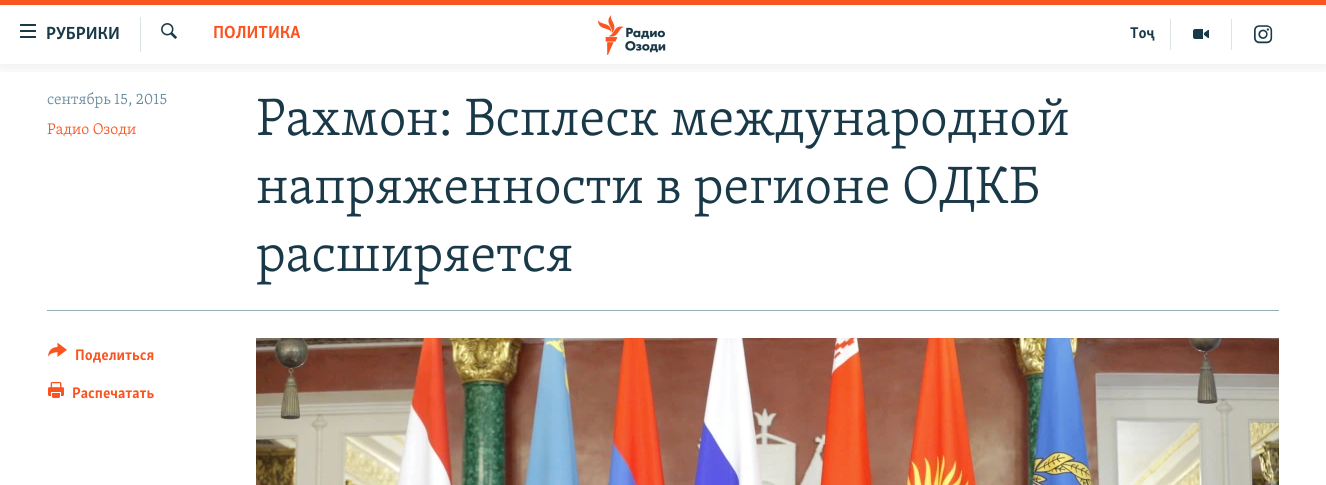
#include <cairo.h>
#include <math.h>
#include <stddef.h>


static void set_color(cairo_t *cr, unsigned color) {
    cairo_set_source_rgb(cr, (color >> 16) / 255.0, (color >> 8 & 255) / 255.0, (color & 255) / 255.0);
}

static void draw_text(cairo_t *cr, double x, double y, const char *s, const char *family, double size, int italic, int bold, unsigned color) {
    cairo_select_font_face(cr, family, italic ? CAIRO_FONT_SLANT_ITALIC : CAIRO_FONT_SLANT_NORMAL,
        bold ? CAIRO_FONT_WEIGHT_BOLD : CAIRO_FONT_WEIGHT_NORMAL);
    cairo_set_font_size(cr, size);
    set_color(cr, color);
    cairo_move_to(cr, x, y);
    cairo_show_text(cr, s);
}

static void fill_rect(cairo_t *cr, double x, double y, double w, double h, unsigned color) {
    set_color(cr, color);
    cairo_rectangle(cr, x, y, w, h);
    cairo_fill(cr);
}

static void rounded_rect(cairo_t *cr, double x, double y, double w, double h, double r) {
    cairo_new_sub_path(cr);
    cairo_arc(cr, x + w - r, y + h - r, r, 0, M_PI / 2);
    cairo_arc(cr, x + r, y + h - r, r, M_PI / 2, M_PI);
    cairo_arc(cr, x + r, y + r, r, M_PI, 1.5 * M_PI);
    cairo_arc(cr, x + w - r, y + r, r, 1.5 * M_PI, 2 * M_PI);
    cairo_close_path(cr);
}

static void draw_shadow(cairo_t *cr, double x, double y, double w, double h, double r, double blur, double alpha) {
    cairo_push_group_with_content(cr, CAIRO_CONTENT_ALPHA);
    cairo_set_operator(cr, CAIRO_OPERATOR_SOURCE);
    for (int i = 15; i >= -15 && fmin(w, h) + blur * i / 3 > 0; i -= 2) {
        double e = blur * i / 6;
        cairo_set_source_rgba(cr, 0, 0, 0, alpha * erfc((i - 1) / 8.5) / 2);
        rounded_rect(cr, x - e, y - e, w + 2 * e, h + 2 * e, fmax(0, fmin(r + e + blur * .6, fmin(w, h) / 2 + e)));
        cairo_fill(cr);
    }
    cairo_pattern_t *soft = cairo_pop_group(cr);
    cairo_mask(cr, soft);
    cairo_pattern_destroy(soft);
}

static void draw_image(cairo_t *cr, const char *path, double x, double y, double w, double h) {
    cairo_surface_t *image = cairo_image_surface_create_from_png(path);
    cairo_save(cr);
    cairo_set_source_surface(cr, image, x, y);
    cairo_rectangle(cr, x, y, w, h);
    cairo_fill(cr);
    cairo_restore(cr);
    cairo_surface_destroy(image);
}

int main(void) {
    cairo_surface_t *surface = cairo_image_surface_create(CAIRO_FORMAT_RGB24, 1326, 485);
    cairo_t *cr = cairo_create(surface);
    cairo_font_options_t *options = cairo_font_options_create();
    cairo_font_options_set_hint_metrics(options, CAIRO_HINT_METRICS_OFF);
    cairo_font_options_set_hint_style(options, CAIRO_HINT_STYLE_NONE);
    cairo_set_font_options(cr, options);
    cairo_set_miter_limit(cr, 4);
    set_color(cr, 0xFFFFFF);
    cairo_paint(cr);
    cairo_save(cr);
    cairo_rectangle(cr, 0, 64, 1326, 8);
    cairo_clip(cr);
    set_color(cr, 0x000000);
    draw_shadow(cr, 0, 0, 1326, 64, 0, 10, 0.1);
    cairo_restore(cr);
    fill_rect(cr, 0, 0, 1326, 5, 0xFA5420);
    draw_image(cr, "assets/img1.png", 20, 24, 16, 14);
    draw_text(cr, 46, 39, "РУБРИКИ", "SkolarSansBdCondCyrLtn", 18, 0, 1, 0x1A3948);
    fill_rect(cr, 140, 17, 1, 35, 0xDCE4E8);
    draw_image(cr, "assets/img2.png", 161, 23, 16, 16);
    draw_text(cr, 213, 38, "ПОЛИТИКА", "SkolarSansBdCondCyrLtn", 18, 0, 1, 0xFA5420);
    draw_image(cr, "assets/img3.png", 598, 15, 68, 40);
    fill_rect(cr, 1170, 19, 1, 31, 0xDCE4E8);
    draw_text(cr, 1130, 38, "Тоҷ", "SkolarSansBdCondCyrLtn", 16, 0, 1, 0x1A3948);
    fill_rect(cr, 1231, 19, 1, 31, 0xDCE4E8);
    draw_image(cr, "assets/img4.png", 1193, 29, 16, 10);
    draw_image(cr, "assets/img5.png", 1254, 25, 19, 19);
    draw_text(cr, 47, 104, "сентябрь 15, 2015", "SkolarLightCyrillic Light", 15.75, 0, 0, 0x678A9B);
    draw_text(cr, 47, 134, "Радио Озоди", "SkolarLightCyrillic Light", 15.75, 0, 0, 0xFA5420);
    draw_text(cr, 256, 135, "Рахмон: Всплеск международной", "SkolarLightCyrillic Light", 54, 0, 0, 0x1A3948);
    draw_text(cr, 256, 203, "напряженности в регионе ОДКБ", "SkolarLightCyrillic Light", 54, 0, 0, 0x1A3948);
    draw_text(cr, 256, 271, "расширяется", "SkolarLightCyrillic Light", 54, 0, 0, 0x1A3948);
    fill_rect(cr, 47, 310, 1232, 1, 0x95ADB9);
    draw_image(cr, "assets/img6.png", 48, 342, 19, 15);
    draw_text(cr, 75, 360, "Поделиться", "SkolarSansBdCondCyrLtn", 15.75, 0, 1, 0xFA5420);
    draw_image(cr, "assets/img7.png", 48, 382, 16, 16);
    draw_text(cr, 72, 398, "Распечатать", "SkolarSansBdCondCyrLtn", 15.75, 0, 1, 0xFA5420);
    draw_image(cr, "assets/img8.png", 256, 338, 1023, 147);
    cairo_surface_write_to_png(surface, "output.png");
    cairo_font_options_destroy(options);
    cairo_destroy(cr);
    cairo_surface_destroy(surface);
    return 0;
}
